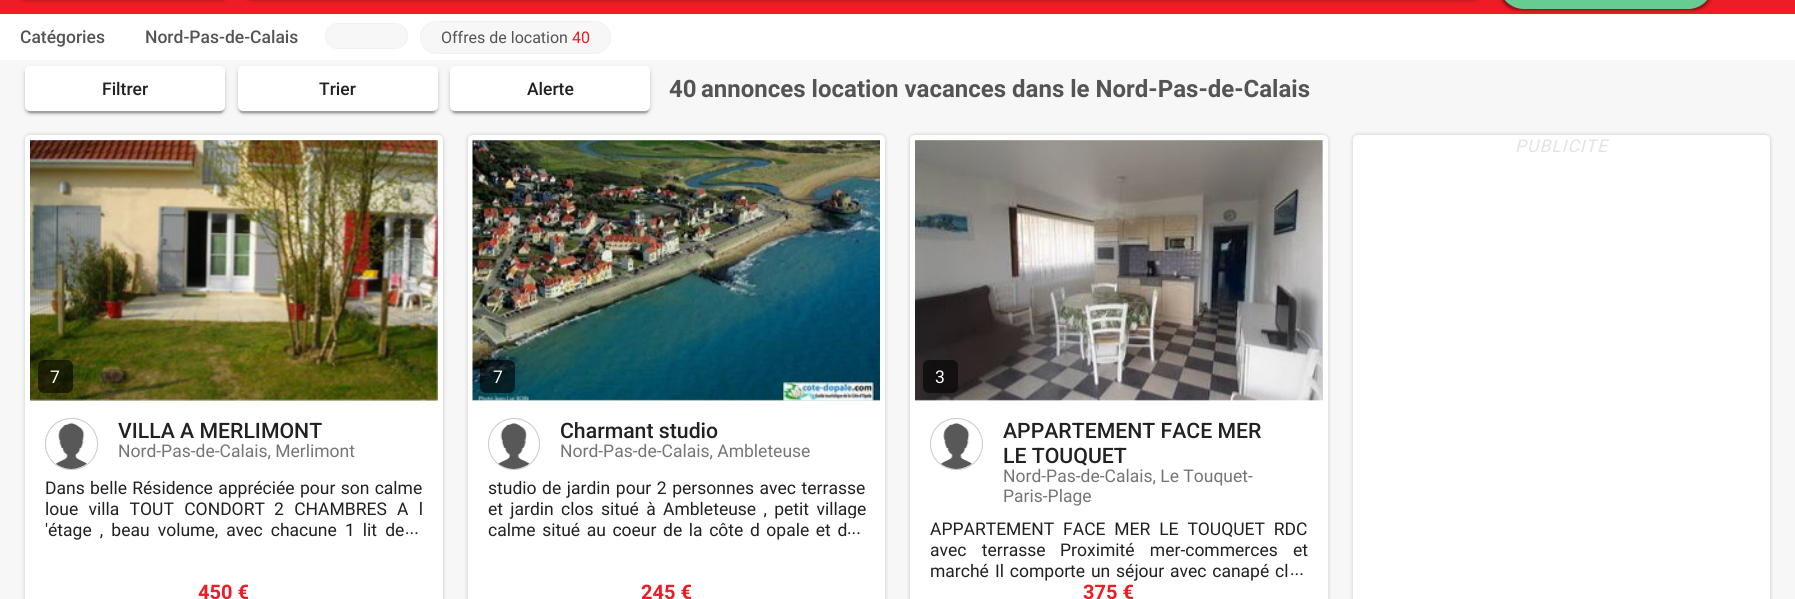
#include <cairo.h>
#include <math.h>
#include <stddef.h>


static void set_color(cairo_t *cr, unsigned color) {
    cairo_set_source_rgb(cr, (color >> 16) / 255.0, (color >> 8 & 255) / 255.0, (color & 255) / 255.0);
}

static void draw_text(cairo_t *cr, double x, double y, const char *s, const char *family, double size, int italic, int bold, unsigned color) {
    cairo_select_font_face(cr, family, italic ? CAIRO_FONT_SLANT_ITALIC : CAIRO_FONT_SLANT_NORMAL,
        bold ? CAIRO_FONT_WEIGHT_BOLD : CAIRO_FONT_WEIGHT_NORMAL);
    cairo_set_font_size(cr, size);
    set_color(cr, color);
    cairo_move_to(cr, x, y);
    cairo_show_text(cr, s);
}

static void draw_spaced(cairo_t *cr, double x, double y, const char *s, double letter, double word) {
    cairo_move_to(cr, x, y);
    while (*s) {
        char ch[5] = {0};
        int n = 0;
        do ch[n++] = *s++; while ((*s & 0xC0) == 0x80);
        cairo_show_text(cr, ch);
        cairo_rel_move_to(cr, letter + word * (*ch == ' '), 0);
    }
}

static void fill_rect(cairo_t *cr, double x, double y, double w, double h, unsigned color) {
    set_color(cr, color);
    cairo_rectangle(cr, x, y, w, h);
    cairo_fill(cr);
}

static void rounded_rect(cairo_t *cr, double x, double y, double w, double h, double r) {
    cairo_new_sub_path(cr);
    cairo_arc(cr, x + w - r, y + h - r, r, 0, M_PI / 2);
    cairo_arc(cr, x + r, y + h - r, r, M_PI / 2, M_PI);
    cairo_arc(cr, x + r, y + r, r, M_PI, 1.5 * M_PI);
    cairo_arc(cr, x + w - r, y + r, r, 1.5 * M_PI, 2 * M_PI);
    cairo_close_path(cr);
}

static void draw_shadow(cairo_t *cr, double x, double y, double w, double h, double r, double blur, double alpha) {
    cairo_push_group_with_content(cr, CAIRO_CONTENT_ALPHA);
    cairo_set_operator(cr, CAIRO_OPERATOR_SOURCE);
    for (int i = 15; i >= -15 && fmin(w, h) + blur * i / 3 > 0; i -= 2) {
        double e = blur * i / 6;
        cairo_set_source_rgba(cr, 0, 0, 0, alpha * erfc((i - 1) / 8.5) / 2);
        rounded_rect(cr, x - e, y - e, w + 2 * e, h + 2 * e, fmax(0, fmin(r + e + blur * .6, fmin(w, h) / 2 + e)));
        cairo_fill(cr);
    }
    cairo_pattern_t *soft = cairo_pop_group(cr);
    cairo_mask(cr, soft);
    cairo_pattern_destroy(soft);
}

static void draw_image(cairo_t *cr, const char *path, double x, double y, double w, double h) {
    cairo_surface_t *image = cairo_image_surface_create_from_png(path);
    cairo_save(cr);
    cairo_set_source_surface(cr, image, x, y);
    cairo_rectangle(cr, x, y, w, h);
    cairo_fill(cr);
    cairo_restore(cr);
    cairo_surface_destroy(image);
}

int main(void) {
    cairo_surface_t *surface = cairo_image_surface_create(CAIRO_FORMAT_RGB24, 1795, 599);
    cairo_t *cr = cairo_create(surface);
    cairo_font_options_t *options = cairo_font_options_create();
    cairo_font_options_set_hint_metrics(options, CAIRO_HINT_METRICS_OFF);
    cairo_font_options_set_hint_style(options, CAIRO_HINT_STYLE_NONE);
    cairo_set_font_options(cr, options);
    cairo_set_miter_limit(cr, 4);
    set_color(cr, 0xF7F7F7);
    cairo_paint(cr);
    fill_rect(cr, 0, 0, 1795, 14, 0xEE1C24);
    set_color(cr, 0x000000);
    draw_shadow(cr, 20, -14, 206, 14, 5, 3, 0.12);
    draw_shadow(cr, 20, -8, 206, 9, 5, 1, 0.14);
    draw_shadow(cr, 239, -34, 1247, 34, 25, 3, 0.12);
    draw_shadow(cr, 239, -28, 1247, 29, 25, 1, 0.14);
    fill_rect(cr, 0, 14, 1795, 46, 0xFFFFFF);
    set_color(cr, 0x000000);
    draw_shadow(cr, 1499, -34, 214, 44, 25, 3, 0.12);
    draw_shadow(cr, 1499, -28, 214, 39, 25, 1, 0.14);
    draw_shadow(cr, 1501, -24, 209, 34, 22.5, 0.5, 0.2);
    set_color(cr, 0x66CC91);
    rounded_rect(cr, 1499, -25, 214, 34, 25);
    cairo_fill(cr);
    draw_text(cr, 20, 43, "Catégories", "Roboto Medium", 17.5, 0, 0, 0x545454);
    draw_text(cr, 145, 43, "Nord-Pas-de-Calais", "Roboto Medium", 17.5, 0, 0, 0x545454);
    set_color(cr, 0xF7F7F7);
    rounded_rect(cr, 325.5, 23.5, 82, 25, 12.5);
    cairo_fill_preserve(cr);
    set_color(cr, 0xF1F1F1);
    cairo_set_line_width(cr, 1);
    cairo_stroke(cr);
    set_color(cr, 0xF7F7F7);
    rounded_rect(cr, 420.5, 21.5, 190, 32, 16);
    cairo_fill_preserve(cr);
    set_color(cr, 0xF1F1F1);
    cairo_stroke(cr);
    draw_text(cr, 441, 43, "Offres de location", "Roboto", 16, 0, 0, 0x545454);
    draw_text(cr, 572, 43, "40", "Roboto", 16, 0, 0, 0xEE1C24);
    set_color(cr, 0x000000);
    draw_shadow(cr, 25, 68, 200, 45, 5, 3, 0.12);
    draw_shadow(cr, 25, 69, 200, 45, 5, 1, 0.14);
    draw_shadow(cr, 28, 73, 195, 40, 2.5, 0.5, 0.2);
    set_color(cr, 0xFFFFFF);
    rounded_rect(cr, 25, 66, 200, 45, 5);
    cairo_fill(cr);
    draw_text(cr, 102, 95, "Filtrer", "Roboto Medium", 17.5, 0, 0, 0x212121);
    set_color(cr, 0x000000);
    draw_shadow(cr, 238, 68, 200, 45, 5, 3, 0.12);
    draw_shadow(cr, 238, 69, 200, 45, 5, 1, 0.14);
    draw_shadow(cr, 240, 73, 195, 40, 2.5, 0.5, 0.2);
    set_color(cr, 0xFFFFFF);
    rounded_rect(cr, 238, 66, 200, 45, 5);
    cairo_fill(cr);
    draw_text(cr, 319, 95, "Trier", "Roboto Medium", 17.5, 0, 0, 0x212121);
    set_color(cr, 0x000000);
    draw_shadow(cr, 450, 68, 200, 45, 5, 3, 0.12);
    draw_shadow(cr, 450, 69, 200, 45, 5, 1, 0.14);
    draw_shadow(cr, 453, 73, 195, 40, 2.5, 0.5, 0.2);
    set_color(cr, 0xFFFFFF);
    rounded_rect(cr, 450, 66, 200, 45, 5);
    cairo_fill(cr);
    draw_text(cr, 527, 95, "Alerte", "Roboto Medium", 17.5, 0, 0, 0x212121);
    draw_text(cr, 669, 97, "40", "Roboto", 24, 0, 1, 0x545454);
    draw_text(cr, 701, 97, "annonces location vacances dans le Nord-Pas-de-Calais", "Roboto", 24, 0, 1, 0x545454);
    set_color(cr, 0x000000);
    draw_shadow(cr, 1353, 135, 417, 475, 5, 2, 0.2);
    set_color(cr, 0xFFFFFF);
    rounded_rect(cr, 1353, 135, 417, 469, 5);
    cairo_fill(cr);
    cairo_select_font_face(cr, "Roboto", CAIRO_FONT_SLANT_ITALIC, CAIRO_FONT_WEIGHT_NORMAL);
    cairo_set_font_size(cr, 17.5);
    set_color(cr, 0xE3E3E3);
    draw_spaced(cr, 1515, 152, "PUBLICITE", 1, 0);
    set_color(cr, 0x000000);
    draw_shadow(cr, 25, 135, 418, 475, 5, 2, 0.2);
    set_color(cr, 0xFFFFFF);
    rounded_rect(cr, 25, 135, 418, 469, 5);
    cairo_fill(cr);
    fill_rect(cr, 30, 140, 408, 260, 0xE1E1E1);
    draw_image(cr, "assets/img1.png", 30, 140, 408, 261);
    cairo_set_source_rgba(cr, 0, 0, 0, 0.6);
    rounded_rect(cr, 38, 360, 35, 33, 6);
    cairo_fill(cr);
    draw_text(cr, 50, 383, "7", "Roboto", 17.5, 0, 0, 0xFFFFFF);
    rounded_rect(cr, 45.5, 418.5, 52, 51, 25.5);
    set_color(cr, 0xC9C9C9);
    cairo_stroke(cr);
    draw_image(cr, "assets/img2.png", 55, 423, 32, 46);
    draw_text(cr, 118, 438, "VILLA A MERLIMONT", "Roboto Medium", 21.25, 0, 0, 0x212121);
    draw_text(cr, 118, 457, "Nord-Pas-de-Calais, Merlimont", "Roboto", 17.5, 0, 0, 0x757575);
    set_color(cr, 0x212121);
    draw_spaced(cr, 45, 494, "Dans belle Résidence appréciée pour son calme", 0, 1);
    draw_spaced(cr, 45, 515, "loue villa TOUT CONDORT", 0, 6);
    draw_spaced(cr, 274, 515, "2 CHAMBRES A l", 0, 6);
    draw_spaced(cr, 45, 536, "'étage , beau volume, avec chacune 1 lit de", 0, 3.75);
    draw_text(cr, 405, 534, "...", "Roboto", 17.5, 0, 0, 0x212121);
    draw_text(cr, 198, 599, "450 €", "Roboto", 20, 0, 1, 0xEE1C24);
    set_color(cr, 0x000000);
    draw_shadow(cr, 468, 135, 417, 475, 5, 2, 0.2);
    set_color(cr, 0xFFFFFF);
    rounded_rect(cr, 468, 135, 417, 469, 5);
    cairo_fill(cr);
    draw_image(cr, "assets/img3.png", 472, 140, 408, 261);
    cairo_set_source_rgba(cr, 0, 0, 0, 0.6);
    rounded_rect(cr, 480, 360, 35, 33, 6);
    cairo_fill(cr);
    draw_text(cr, 493, 383, "7", "Roboto", 17.5, 0, 0, 0xFFFFFF);
    cairo_new_path(cr);
    cairo_arc(cr, 514, 444, 25.5, 0, 2 * M_PI);
    set_color(cr, 0xC9C9C9);
    cairo_stroke(cr);
    draw_image(cr, "assets/img4.png", 498, 423, 32, 46);
    draw_text(cr, 560, 438, "Charmant studio", "Roboto Medium", 21.25, 0, 0, 0x212121);
    draw_text(cr, 560, 457, "Nord-Pas-de-Calais, Ambleteuse", "Roboto", 17.5, 0, 0, 0x757575);
    set_color(cr, 0x212121);
    draw_spaced(cr, 488, 494, "studio de jardin pour 2 personnes avec terrasse", 0, 1.25);
    draw_spaced(cr, 488, 515, "et jardin clos situé à Ambleteuse , petit village", 0, 3);
    draw_spaced(cr, 488, 536, "calme situé au coeur de la côte d opale et d", 0, 2.25);
    fill_rect(cr, 848, 518, 5, 1, 0xFFFFFF);
    draw_text(cr, 847, 534, "...", "Roboto", 17.5, 0, 0, 0x212121);
    draw_text(cr, 641, 599, "245 €", "Roboto", 20, 0, 1, 0xEE1C24);
    set_color(cr, 0x000000);
    draw_shadow(cr, 910, 135, 418, 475, 5, 2, 0.2);
    set_color(cr, 0xFFFFFF);
    rounded_rect(cr, 910, 135, 418, 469, 5);
    cairo_fill(cr);
    fill_rect(cr, 915, 140, 408, 260, 0xE1E1E1);
    draw_image(cr, "assets/img5.png", 915, 140, 408, 261);
    cairo_set_source_rgba(cr, 0, 0, 0, 0.6);
    rounded_rect(cr, 923, 360, 35, 33, 6);
    cairo_fill(cr);
    draw_text(cr, 935, 383, "3", "Roboto", 17.5, 0, 0, 0xFFFFFF);
    rounded_rect(cr, 930.5, 418.5, 52, 51, 25.5);
    set_color(cr, 0xC9C9C9);
    cairo_stroke(cr);
    draw_image(cr, "assets/img2.png", 940, 423, 32, 46);
    draw_text(cr, 1003, 438, "APPARTEMENT FACE MER", "Roboto Medium", 21.25, 0, 0, 0x212121);
    draw_text(cr, 1003, 463, "LE TOUQUET", "Roboto Medium", 21.25, 0, 0, 0x212121);
    draw_text(cr, 1003, 482, "Nord-Pas-de-Calais, Le Touquet-", "Roboto", 17.5, 0, 0, 0x757575);
    draw_text(cr, 1003, 502, "Paris-Plage", "Roboto", 17.5, 0, 0, 0x757575);
    set_color(cr, 0x212121);
    draw_spaced(cr, 930, 535, "APPARTEMENT FACE MER LE TOUQUET RDC", 0, 4.5);
    draw_spaced(cr, 930, 556, "avec terrasse", 0, 11);
    draw_spaced(cr, 1060, 556, "Proximité mer-commerces et", 0, 11);
    draw_text(cr, 930, 577, "marché", "Roboto", 17.5, 0, 0, 0x212121);
    draw_spaced(cr, 995, 577, "Il comporte un séjour avec canapé cl", 0, 1.5);
    draw_text(cr, 1290, 575, "...", "Roboto", 17.5, 0, 0, 0x212121);
    draw_text(cr, 1083, 599, "375 €", "Roboto", 20, 0, 1, 0xEE1C24);
    cairo_surface_write_to_png(surface, "output.png");
    cairo_font_options_destroy(options);
    cairo_destroy(cr);
    cairo_surface_destroy(surface);
    return 0;
}
